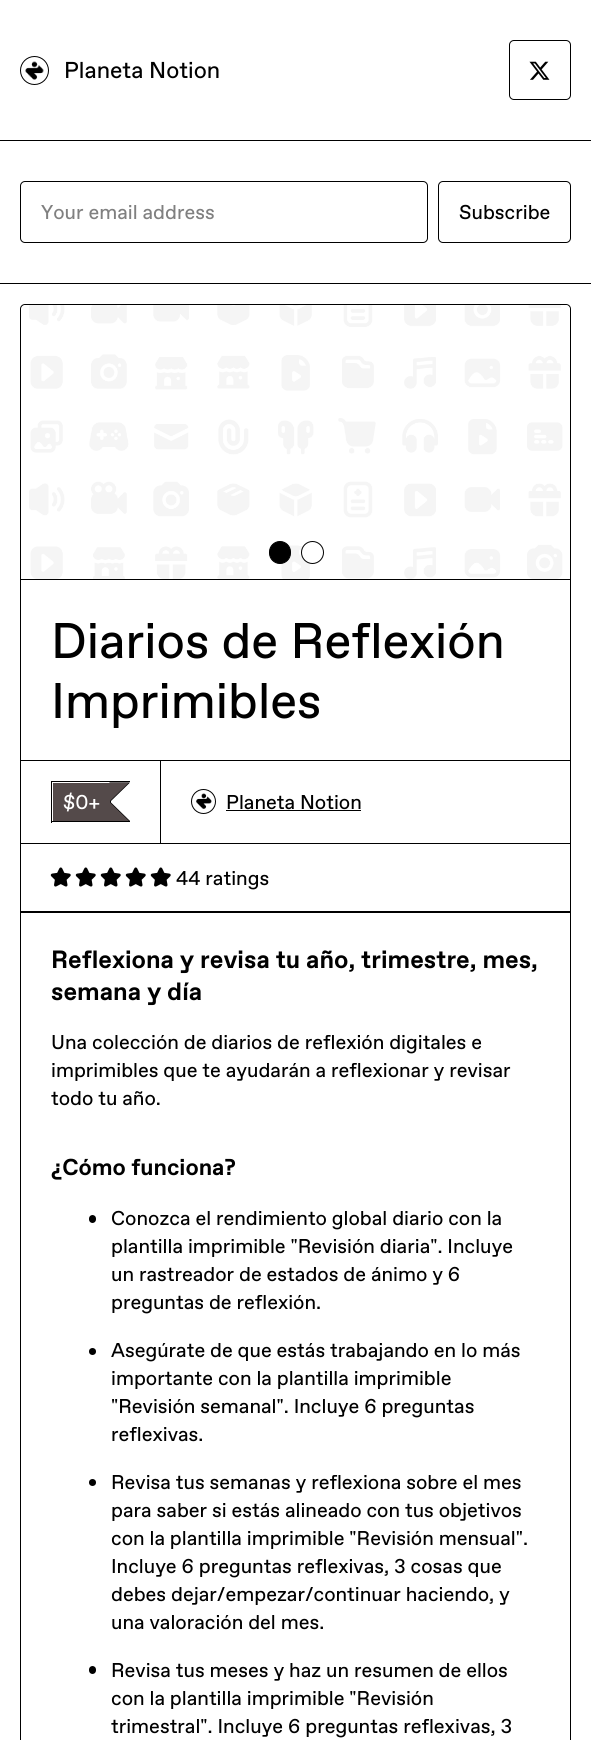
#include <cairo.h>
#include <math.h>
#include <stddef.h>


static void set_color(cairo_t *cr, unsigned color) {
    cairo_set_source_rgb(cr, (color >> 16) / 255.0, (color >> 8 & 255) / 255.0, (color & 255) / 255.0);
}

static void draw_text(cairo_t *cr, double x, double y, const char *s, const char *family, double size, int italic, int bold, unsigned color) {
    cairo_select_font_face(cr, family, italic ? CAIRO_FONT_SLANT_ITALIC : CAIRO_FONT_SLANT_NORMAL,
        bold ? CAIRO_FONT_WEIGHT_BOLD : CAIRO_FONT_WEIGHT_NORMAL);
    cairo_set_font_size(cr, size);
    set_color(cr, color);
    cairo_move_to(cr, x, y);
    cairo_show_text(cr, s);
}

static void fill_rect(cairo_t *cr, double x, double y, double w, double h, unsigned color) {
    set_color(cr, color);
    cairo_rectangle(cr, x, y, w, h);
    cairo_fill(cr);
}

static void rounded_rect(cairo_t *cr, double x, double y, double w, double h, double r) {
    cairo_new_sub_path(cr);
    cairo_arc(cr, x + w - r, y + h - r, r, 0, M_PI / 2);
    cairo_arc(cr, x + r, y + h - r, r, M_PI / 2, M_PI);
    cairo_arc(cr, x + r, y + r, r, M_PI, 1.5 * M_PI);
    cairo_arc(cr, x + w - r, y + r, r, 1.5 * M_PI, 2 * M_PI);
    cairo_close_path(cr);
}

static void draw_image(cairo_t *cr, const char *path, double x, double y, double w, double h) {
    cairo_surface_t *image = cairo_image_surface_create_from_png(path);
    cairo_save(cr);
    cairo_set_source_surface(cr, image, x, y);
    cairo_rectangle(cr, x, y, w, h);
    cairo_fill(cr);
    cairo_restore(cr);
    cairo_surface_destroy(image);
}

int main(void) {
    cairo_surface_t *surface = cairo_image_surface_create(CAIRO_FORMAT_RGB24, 591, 1740);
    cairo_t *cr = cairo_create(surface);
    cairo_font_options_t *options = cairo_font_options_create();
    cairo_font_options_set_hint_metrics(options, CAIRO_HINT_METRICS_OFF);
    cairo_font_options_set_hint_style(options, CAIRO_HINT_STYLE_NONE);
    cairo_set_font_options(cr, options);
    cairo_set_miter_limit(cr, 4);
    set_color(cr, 0xFFFFFF);
    cairo_paint(cr);
    fill_rect(cr, 0, 140, 591, 1, 0x000000);
    cairo_arc(cr, 34.5, 70.5, 14, 0, 2 * M_PI);
    cairo_set_line_width(cr, 1);
    cairo_stroke(cr);
    draw_image(cr, "assets/img1.png", 25, 61, 19, 19);
    draw_text(cr, 64, 78, "Planeta Notion", "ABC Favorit", 23, 0, 0, 0x000000);
    rounded_rect(cr, 509.5, 40.5, 61, 59, 4.5);
    cairo_stroke(cr);
    draw_image(cr, "assets/img2.png", 529, 61, 21, 19);
    fill_rect(cr, 0, 283, 591, 1, 0x000000);
    rounded_rect(cr, 20.5, 181.5, 407, 61, 4.5);
    cairo_stroke(cr);
    draw_text(cr, 41, 219, "Your email address", "ABC Favorit", 20, 0, 0, 0x808080);
    rounded_rect(cr, 438.5, 181.5, 132, 61, 4.5);
    set_color(cr, 0x000000);
    cairo_stroke(cr);
    draw_text(cr, 459, 219, "Subscribe", "ABC Favorit", 20, 0, 0, 0x000000);
    rounded_rect(cr, 20.5, 304.5, 550, 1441, 4.5);
    cairo_stroke(cr);
    draw_image(cr, "assets/img3.png", 21, 305, 549, 274);
    fill_rect(cr, 21, 579, 549, 1, 0x000000);
    rounded_rect(cr, 269.5, 541.5, 21, 22, 10.5);
    cairo_fill_preserve(cr);
    cairo_stroke(cr);
    set_color(cr, 0xFFFFFF);
    cairo_arc(cr, 312.5, 552.5, 11, 0, 2 * M_PI);
    cairo_fill_preserve(cr);
    set_color(cr, 0x000000);
    cairo_stroke(cr);
    draw_text(cr, 51, 658, "Diarios de Reflexión", "ABC Favorit", 50, 0, 0, 0x000000);
    draw_text(cr, 51, 718, "Imprimibles", "ABC Favorit", 50, 0, 0, 0x000000);
    cairo_rectangle(cr, 20.5, 760.5, 140, 83);
    cairo_stroke(cr);
    fill_rect(cr, 51, 781, 79, 1, 0x000000);
    fill_rect(cr, 51, 821, 79, 1, 0x000000);
    fill_rect(cr, 51, 781, 1, 42, 0x000000);
    fill_rect(cr, 53, 783, 57, 38, 0x544A4A);
    set_color(cr, 0x000000);
    cairo_new_path(cr);
    cairo_move_to(cr, 110, 782.5);
    cairo_line_to(cr, 130, 782.5);
    cairo_line_to(cr, 111, 801);
    cairo_close_path(cr);
    cairo_move_to(cr, 130, 821);
    cairo_line_to(cr, 110, 821);
    cairo_line_to(cr, 111, 802.5);
    cairo_close_path(cr);
    cairo_fill(cr);
    fill_rect(cr, 110, 800, 1, 4, 0x000000);
    set_color(cr, 0x544A4A);
    cairo_new_path(cr);
    cairo_move_to(cr, 109, 782.5);
    cairo_line_to(cr, 129, 782.5);
    cairo_line_to(cr, 110, 801);
    cairo_close_path(cr);
    cairo_move_to(cr, 129, 821);
    cairo_line_to(cr, 109, 821);
    cairo_line_to(cr, 110, 802.5);
    cairo_close_path(cr);
    cairo_fill(cr);
    draw_text(cr, 63, 809, "$0+", "ABC Favorit", 20, 0, 0, 0xFFFFFF);
    cairo_rectangle(cr, 160.5, 760.5, 410, 83);
    set_color(cr, 0x000000);
    cairo_stroke(cr);
    cairo_arc(cr, 203.5, 801.5, 12, 0, 2 * M_PI);
    cairo_stroke(cr);
    draw_image(cr, "assets/img4.png", 196, 793, 16, 16);
    draw_text(cr, 226, 809, "Planeta Notion", "ABC Favorit", 20, 0, 0, 0x000000);
    fill_rect(cr, 226, 810, 135, 1, 0x000000);
    fill_rect(cr, 21, 911, 549, 1, 0x000000);
    cairo_rectangle(cr, 20.5, 843.5, 550, 69);
    cairo_stroke(cr);
    draw_image(cr, "assets/img5.png", 50, 867, 21, 20);
    draw_image(cr, "assets/img5.png", 75, 867, 21, 20);
    draw_image(cr, "assets/img5.png", 100, 867, 21, 20);
    draw_image(cr, "assets/img5.png", 125, 867, 21, 20);
    draw_image(cr, "assets/img5.png", 150, 867, 21, 20);
    draw_text(cr, 176, 885, "44 ratings", "ABC Favorit", 20, 0, 0, 0x000000);
    draw_text(cr, 51, 968, "Reflexiona y revisa tu año, trimestre, mes,", "ABC Favorit", 25, 0, 1, 0x000000);
    draw_text(cr, 51, 1000, "semana y día", "ABC Favorit", 25, 0, 1, 0x000000);
    draw_text(cr, 51, 1049, "Una colección de diarios de reflexión digitales e", "ABC Favorit", 20, 0, 0, 0x000000);
    draw_text(cr, 51, 1077, "imprimibles que te ayudarán a reflexionar y revisar", "ABC Favorit", 20, 0, 0, 0x000000);
    draw_text(cr, 51, 1105, "todo tu año.", "ABC Favorit", 20, 0, 0, 0x000000);
    draw_text(cr, 51, 1175, "¿Cómo funciona?", "ABC Favorit", 23, 0, 1, 0x000000);
    rounded_rect(cr, 89, 1215, 7, 8, 3.5);
    cairo_fill(cr);
    draw_text(cr, 111, 1225, "Conozca el rendimiento global diario con la", "ABC Favorit", 20, 0, 0, 0x000000);
    draw_text(cr, 111, 1253, "plantilla imprimible \"Revisión diaria\". Incluye", "ABC Favorit", 20, 0, 0, 0x000000);
    draw_text(cr, 111, 1281, "un rastreador de estados de ánimo y 6", "ABC Favorit", 20, 0, 0, 0x000000);
    draw_text(cr, 111, 1309, "preguntas de reflexión.", "ABC Favorit", 20, 0, 0, 0x000000);
    cairo_new_path(cr);
    cairo_arc(cr, 92.5, 1351.5, 3.5, 0, 2 * M_PI);
    cairo_fill(cr);
    draw_text(cr, 111, 1357, "Asegúrate de que estás trabajando en lo más", "ABC Favorit", 20, 0, 0, 0x000000);
    draw_text(cr, 111, 1385, "importante con la plantilla imprimible", "ABC Favorit", 20, 0, 0, 0x000000);
    draw_text(cr, 111, 1413, "\"Revisión semanal\". Incluye 6 preguntas", "ABC Favorit", 20, 0, 0, 0x000000);
    draw_text(cr, 111, 1441, "reflexivas.", "ABC Favorit", 20, 0, 0, 0x000000);
    cairo_new_path(cr);
    cairo_arc(cr, 92.5, 1482.5, 3.5, 0, 2 * M_PI);
    cairo_fill(cr);
    draw_text(cr, 111, 1489, "Revisa tus semanas y reflexiona sobre el mes", "ABC Favorit", 20, 0, 0, 0x000000);
    draw_text(cr, 111, 1517, "para saber si estás alineado con tus objetivos", "ABC Favorit", 20, 0, 0, 0x000000);
    draw_text(cr, 111, 1545, "con la plantilla imprimible \"Revisión mensual\".", "ABC Favorit", 20, 0, 0, 0x000000);
    draw_text(cr, 111, 1573, "Incluye 6 preguntas reflexivas, 3 cosas que", "ABC Favorit", 20, 0, 0, 0x000000);
    draw_text(cr, 111, 1601, "debes dejar/empezar/continuar haciendo, y", "ABC Favorit", 20, 0, 0, 0x000000);
    draw_text(cr, 111, 1629, "una valoración del mes.", "ABC Favorit", 20, 0, 0, 0x000000);
    rounded_rect(cr, 89, 1666, 7, 8, 3.5);
    cairo_fill(cr);
    draw_text(cr, 111, 1677, "Revisa tus meses y haz un resumen de ellos", "ABC Favorit", 20, 0, 0, 0x000000);
    draw_text(cr, 111, 1705, "con la plantilla imprimible \"Revisión", "ABC Favorit", 20, 0, 0, 0x000000);
    draw_text(cr, 111, 1733, "trimestral\". Incluye 6 preguntas reflexivas, 3", "ABC Favorit", 20, 0, 0, 0x000000);
    cairo_surface_write_to_png(surface, "output.png");
    cairo_font_options_destroy(options);
    cairo_destroy(cr);
    cairo_surface_destroy(surface);
    return 0;
}
